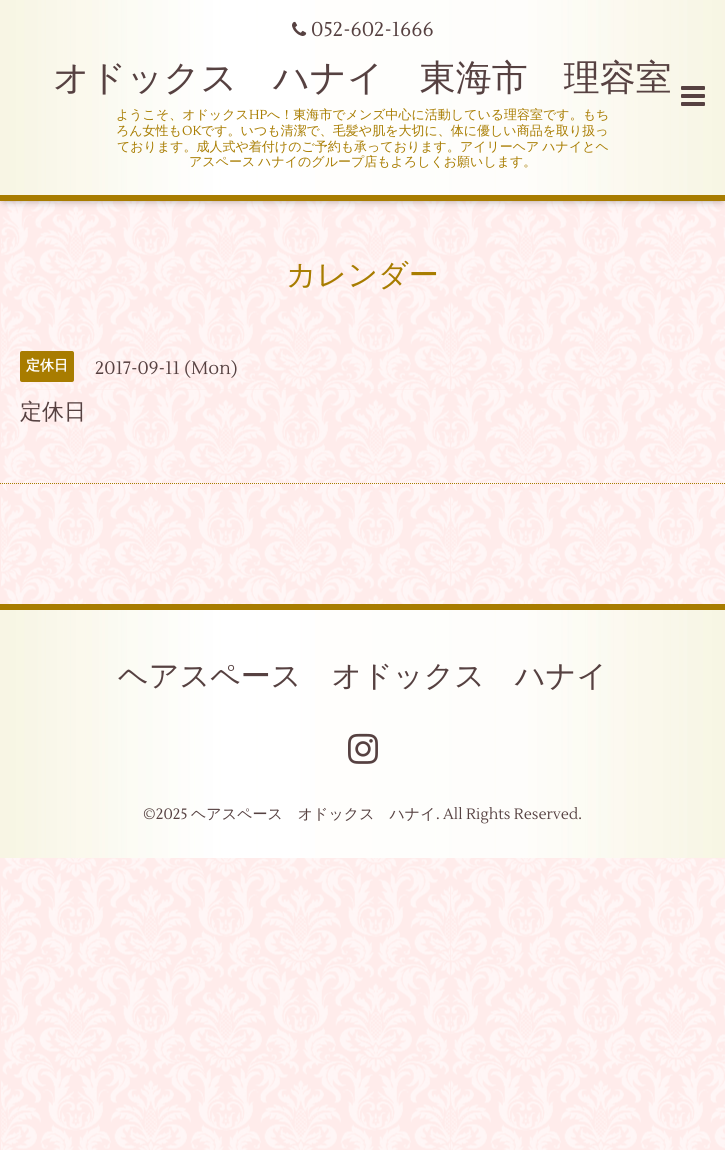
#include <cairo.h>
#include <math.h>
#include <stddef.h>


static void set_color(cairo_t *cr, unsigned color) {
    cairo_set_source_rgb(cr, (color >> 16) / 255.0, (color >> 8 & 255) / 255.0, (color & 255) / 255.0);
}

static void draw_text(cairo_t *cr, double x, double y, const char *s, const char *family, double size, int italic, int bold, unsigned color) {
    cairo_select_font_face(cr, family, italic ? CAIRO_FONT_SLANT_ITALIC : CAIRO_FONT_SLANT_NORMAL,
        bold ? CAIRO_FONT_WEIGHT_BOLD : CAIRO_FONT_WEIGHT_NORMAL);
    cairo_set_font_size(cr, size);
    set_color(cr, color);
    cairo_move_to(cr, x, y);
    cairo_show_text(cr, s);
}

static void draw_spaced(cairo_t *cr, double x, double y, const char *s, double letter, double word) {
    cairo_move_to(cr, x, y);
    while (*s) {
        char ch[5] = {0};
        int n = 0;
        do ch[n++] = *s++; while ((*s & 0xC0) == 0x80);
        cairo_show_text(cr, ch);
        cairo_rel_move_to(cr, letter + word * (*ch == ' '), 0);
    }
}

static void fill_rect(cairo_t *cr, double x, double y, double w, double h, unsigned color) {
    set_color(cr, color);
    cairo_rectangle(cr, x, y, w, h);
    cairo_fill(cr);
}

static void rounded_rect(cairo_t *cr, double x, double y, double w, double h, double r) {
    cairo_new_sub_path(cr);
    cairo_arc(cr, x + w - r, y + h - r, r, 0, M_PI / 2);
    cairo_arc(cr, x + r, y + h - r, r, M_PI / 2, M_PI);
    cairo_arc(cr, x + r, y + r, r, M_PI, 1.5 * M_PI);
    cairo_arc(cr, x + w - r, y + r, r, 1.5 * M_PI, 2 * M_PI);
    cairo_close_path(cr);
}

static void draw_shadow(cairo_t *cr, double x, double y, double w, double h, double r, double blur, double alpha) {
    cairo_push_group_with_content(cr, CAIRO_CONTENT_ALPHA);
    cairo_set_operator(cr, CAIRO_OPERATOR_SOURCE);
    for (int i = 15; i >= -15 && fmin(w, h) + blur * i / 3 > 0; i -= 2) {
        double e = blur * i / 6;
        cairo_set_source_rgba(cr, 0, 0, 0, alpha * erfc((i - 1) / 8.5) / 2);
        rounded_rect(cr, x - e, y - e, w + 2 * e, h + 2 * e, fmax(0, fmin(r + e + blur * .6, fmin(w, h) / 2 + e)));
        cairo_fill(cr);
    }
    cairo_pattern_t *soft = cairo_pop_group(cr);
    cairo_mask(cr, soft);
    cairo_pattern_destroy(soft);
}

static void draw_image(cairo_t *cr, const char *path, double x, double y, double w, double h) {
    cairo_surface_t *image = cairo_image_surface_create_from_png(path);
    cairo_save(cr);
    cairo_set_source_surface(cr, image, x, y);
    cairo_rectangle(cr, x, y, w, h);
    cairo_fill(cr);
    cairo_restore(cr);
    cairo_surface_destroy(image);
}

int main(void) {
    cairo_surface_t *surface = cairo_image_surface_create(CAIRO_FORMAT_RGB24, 725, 1150);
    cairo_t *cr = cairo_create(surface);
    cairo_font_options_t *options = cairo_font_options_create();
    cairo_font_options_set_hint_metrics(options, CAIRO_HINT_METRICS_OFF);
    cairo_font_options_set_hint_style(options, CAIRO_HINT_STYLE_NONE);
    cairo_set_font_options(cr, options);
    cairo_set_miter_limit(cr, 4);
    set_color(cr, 0xFFECEB);
    cairo_paint(cr);
    draw_image(cr, "assets/img1.png", 1, 201, 724, 949);
    set_color(cr, 0x000000);
    draw_shadow(cr, 4, 5, 717, 193, 0, 5, 0.6);
    draw_image(cr, "assets/img2.png", 0, 0, 725, 195);
    fill_rect(cr, 0, 195, 725, 6, 0xA87C00);
    draw_image(cr, "assets/img3.png", 292, 21, 15, 15);
    draw_text(cr, 311, 36, "052-602-1666", "Lustria", 20, 0, 0, 0x564141);
    draw_text(cr, 53, 90, "オドックス　ハナイ　東海市　理容室", "WenQuanYi Zen Hei Medium", 36, 0, 0, 0x564141);
    draw_text(cr, 116, 119, "ようこそ、オドックス", "WenQuanYi Zen Hei Medium", 13, 0, 0, 0xA87C00);
    draw_text(cr, 249, 119, "HP", "Lustria", 13, 0, 0, 0xA87C00);
    draw_text(cr, 267, 119, "へ！東海市でメンズ中心に活動している理容室です。もち", "WenQuanYi Zen Hei Medium", 13, 0, 0, 0xA87C00);
    draw_text(cr, 116, 135, "ろん女性も", "WenQuanYi Zen Hei Medium", 13, 0, 0, 0xA87C00);
    draw_text(cr, 182, 135, "OK", "Lustria", 13, 0, 0, 0xA87C00);
    draw_text(cr, 201, 135, "です。いつも清潔で、毛髪や肌を大切に、体に優しい商品を取り扱っ", "WenQuanYi Zen Hei Medium", 13, 0, 0, 0xA87C00);
    draw_spaced(cr, 117, 151, "ております。成人式や着付けのご予約も承っております。アイリーヘア ハナイとヘ", 0, -1);
    draw_spaced(cr, 189, 166, "アスペース ハナイのグループ店もよろしくお願いします。", 0, -1);
    draw_image(cr, "assets/img4.png", 681, 86, 24, 20);
    draw_text(cr, 286, 285, "カレンダー", "WenQuanYi Zen Hei Medium", 30, 0, 0, 0xA87C00);
    rounded_rect(cr, 20, 351, 54, 31, 2);
    cairo_fill(cr);
    draw_text(cr, 26, 370, "定休日", "WenQuanYi Zen Hei", 14, 0, 1, 0xFFFFFF);
    draw_text(cr, 95, 374, "2017-09-11 (Mon)", "Lustria", 18, 0, 0, 0x564141);
    draw_text(cr, 20, 419, "定休日", "WenQuanYi Zen Hei Medium", 22, 0, 0, 0x564141);
    cairo_new_path(cr);
    cairo_move_to(cr, 0, 483.5);
    cairo_line_to(cr, 725, 483.5);
    set_color(cr, 0xA87C00);
    cairo_set_line_width(cr, 1);
    cairo_set_dash(cr, (double[]){1, 1}, 2, 0);
    cairo_stroke(cr);
    draw_image(cr, "assets/img5.png", 0, 610, 725, 248);
    fill_rect(cr, 0, 604, 725, 6, 0xA87C00);
    draw_text(cr, 118, 686, "ヘアスペース　オドックス　ハナイ", "WenQuanYi Zen Hei Medium", 30, 0, 0, 0x564141);
    draw_image(cr, "assets/img6.png", 348, 733, 30, 31);
    draw_text(cr, 143, 819, "©2025", "Lustria", 15, 0, 0, 0x564141);
    draw_text(cr, 191, 819, "ヘアスペース　オドックス　ハナイ", "WenQuanYi Zen Hei Medium", 15, 0, 0, 0x564141);
    draw_text(cr, 436, 819, ". All Rights Reserved.", "Lustria", 15, 0, 0, 0x564141);
    cairo_surface_write_to_png(surface, "output.png");
    cairo_font_options_destroy(options);
    cairo_destroy(cr);
    cairo_surface_destroy(surface);
    return 0;
}
